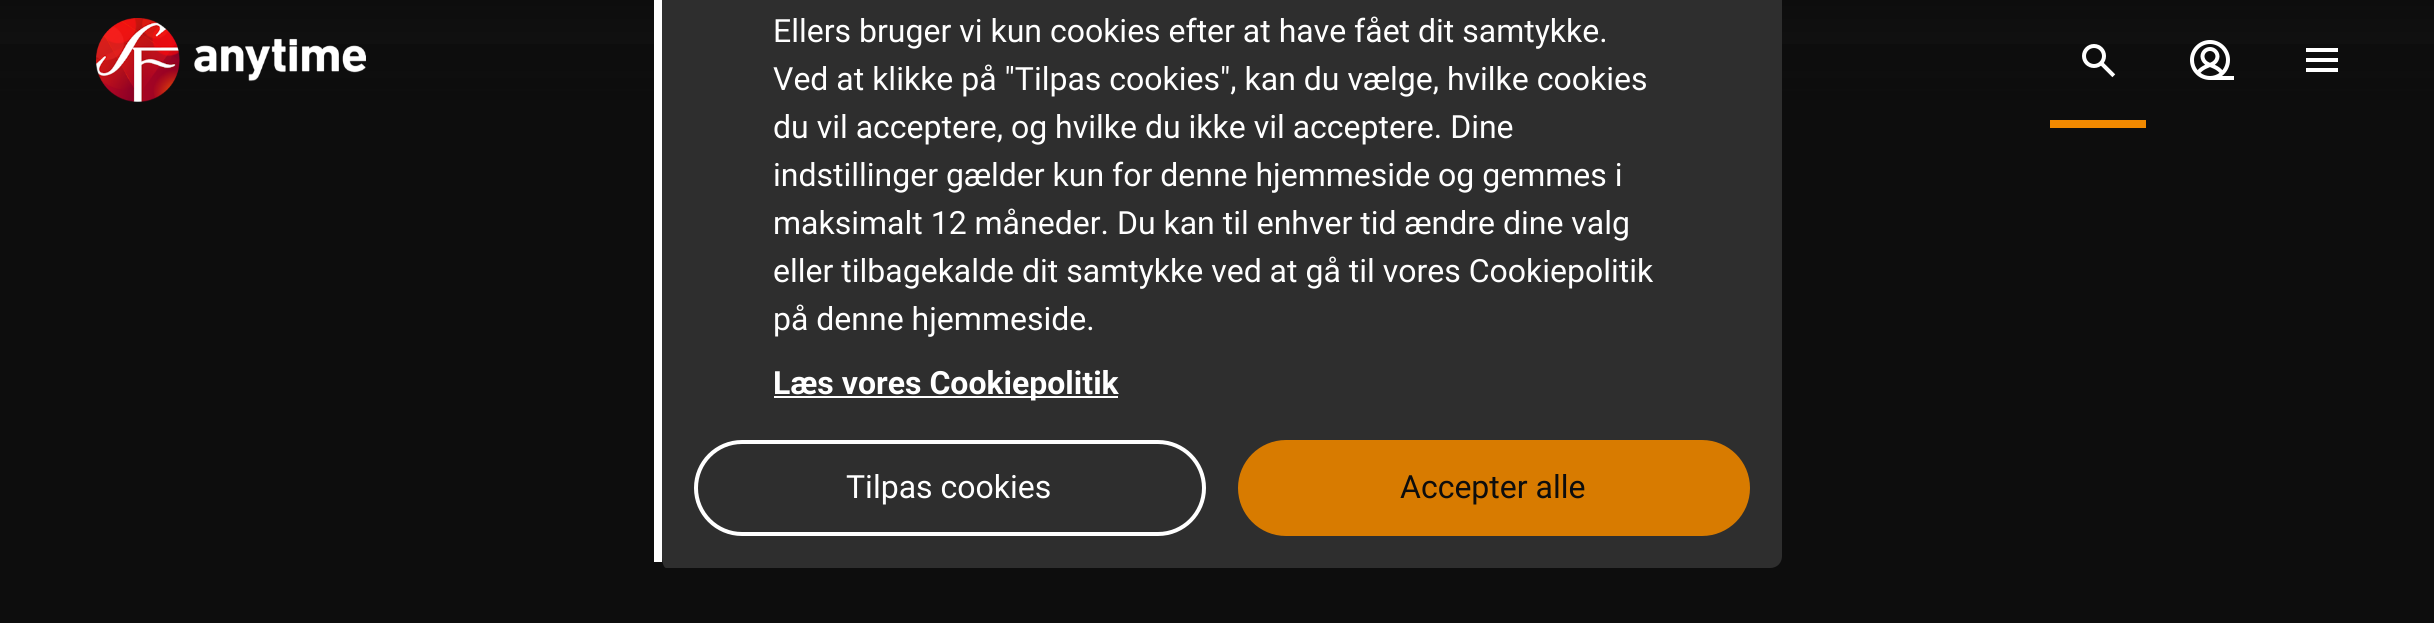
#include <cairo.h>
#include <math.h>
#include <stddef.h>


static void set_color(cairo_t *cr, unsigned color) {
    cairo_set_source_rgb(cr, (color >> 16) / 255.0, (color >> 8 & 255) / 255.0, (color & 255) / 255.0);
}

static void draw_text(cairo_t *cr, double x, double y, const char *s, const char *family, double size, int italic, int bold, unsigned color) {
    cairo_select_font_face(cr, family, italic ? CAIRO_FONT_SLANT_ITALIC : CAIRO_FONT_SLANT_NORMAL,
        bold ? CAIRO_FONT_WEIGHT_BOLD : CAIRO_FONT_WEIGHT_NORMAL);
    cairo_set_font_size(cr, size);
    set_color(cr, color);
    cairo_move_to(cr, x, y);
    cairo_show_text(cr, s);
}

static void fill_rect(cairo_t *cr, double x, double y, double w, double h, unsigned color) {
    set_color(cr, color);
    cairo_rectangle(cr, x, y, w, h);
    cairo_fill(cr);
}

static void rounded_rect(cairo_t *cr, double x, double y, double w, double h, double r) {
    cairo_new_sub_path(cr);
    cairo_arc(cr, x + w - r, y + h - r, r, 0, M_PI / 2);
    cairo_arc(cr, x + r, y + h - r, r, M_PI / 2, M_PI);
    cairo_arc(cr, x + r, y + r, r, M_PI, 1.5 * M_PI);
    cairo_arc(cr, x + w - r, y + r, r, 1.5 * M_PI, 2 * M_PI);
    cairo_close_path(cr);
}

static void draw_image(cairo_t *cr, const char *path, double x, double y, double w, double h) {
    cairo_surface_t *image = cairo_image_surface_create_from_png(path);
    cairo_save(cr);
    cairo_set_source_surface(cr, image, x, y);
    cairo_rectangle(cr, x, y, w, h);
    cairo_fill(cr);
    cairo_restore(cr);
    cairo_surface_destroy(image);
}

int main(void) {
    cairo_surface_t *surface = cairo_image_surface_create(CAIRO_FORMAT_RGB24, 2434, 623);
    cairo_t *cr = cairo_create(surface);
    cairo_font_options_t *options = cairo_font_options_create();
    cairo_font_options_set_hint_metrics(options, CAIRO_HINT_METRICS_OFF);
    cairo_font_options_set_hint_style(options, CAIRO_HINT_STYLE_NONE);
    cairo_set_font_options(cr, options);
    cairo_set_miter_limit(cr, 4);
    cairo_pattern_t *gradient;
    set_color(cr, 0xFFFFFF);
    cairo_paint(cr);
    gradient = cairo_pattern_create_linear(1217, 128, 1217, 0);
    cairo_pattern_add_color_stop_rgba(gradient, 0, 0.09, 0.09, 0.09, 1);
    cairo_pattern_add_color_stop_rgba(gradient, 1, 0.051, 0.051, 0.051, 1);
    cairo_set_source(cr, gradient);
    cairo_pattern_destroy(gradient);
    cairo_rectangle(cr, 0, 0, 2434, 89);
    cairo_fill(cr);
    gradient = cairo_pattern_create_linear(1217, 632, 1217, -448);
    cairo_pattern_add_color_stop_rgba(gradient, 0, 0.051, 0.051, 0.051, 1);
    cairo_pattern_add_color_stop_rgba(gradient, 0.5, 0.051, 0.051, 0.051, 1);
    cairo_pattern_add_color_stop_rgba(gradient, 1, 0.051, 0.051, 0.051, 0);
    cairo_set_source(cr, gradient);
    cairo_pattern_destroy(gradient);
    cairo_rectangle(cr, 0, 44, 2434, 579);
    cairo_fill(cr);
    set_color(cr, 0x2E2E2E);
    cairo_new_path(cr);
    cairo_move_to(cr, 666, -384);
    cairo_line_to(cr, 1770, -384);
    cairo_curve_to(cr, 1777, -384, 1782, -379, 1782, -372);
    cairo_line_to(cr, 1782, 556);
    cairo_curve_to(cr, 1782, 563, 1777, 568, 1770, 568);
    cairo_line_to(cr, 666, 568);
    cairo_curve_to(cr, 664, 568, 662, 563, 662, 556);
    cairo_line_to(cr, 662, -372);
    cairo_curve_to(cr, 662, -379, 664, -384, 666, -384);
    cairo_close_path(cr);
    cairo_fill(cr);
    fill_rect(cr, 654, 0, 8, 562, 0xFFFFFF);
    draw_text(cr, 773, 42, "Ellers bruger vi kun cookies efter at have fået dit samtykke.", "Roboto", 32, 0, 0, 0xFFFFFF);
    draw_text(cr, 773, 90, "Ved at klikke på \"Tilpas cookies\", kan du vælge, hvilke cookies", "Roboto", 32, 0, 0, 0xFFFFFF);
    draw_text(cr, 773, 138, "du vil acceptere, og hvilke du ikke vil acceptere. Dine", "Roboto", 32, 0, 0, 0xFFFFFF);
    draw_text(cr, 773, 186, "indstillinger gælder kun for denne hjemmeside og gemmes i", "Roboto", 32, 0, 0, 0xFFFFFF);
    draw_text(cr, 773, 234, "maksimalt 12 måneder. Du kan til enhver tid ændre dine valg", "Roboto", 32, 0, 0, 0xFFFFFF);
    draw_text(cr, 773, 282, "eller tilbagekalde dit samtykke ved at gå til vores Cookiepolitik", "Roboto", 32, 0, 0, 0xFFFFFF);
    draw_text(cr, 773, 330, "på denne hjemmeside.", "Roboto", 32, 0, 0, 0xFFFFFF);
    fill_rect(cr, 774, 396, 344, 2, 0xFFFFFF);
    draw_text(cr, 773, 394, "Læs vores Cookiepolitik", "Roboto", 32, 0, 1, 0xFFFFFF);
    rounded_rect(cr, 696, 442, 508, 92, 46);
    cairo_set_line_width(cr, 4);
    cairo_stroke(cr);
    draw_text(cr, 846, 498, "Tilpas cookies", "Roboto", 32, 0, 0, 0xFFFFFF);
    set_color(cr, 0xD87B00);
    rounded_rect(cr, 1240, 442, 508, 92, 46);
    cairo_fill_preserve(cr);
    cairo_stroke(cr);
    draw_text(cr, 1400, 498, "Accepter alle", "Roboto", 32, 0, 0, 0x0D0D0D);
    draw_image(cr, "assets/img1.png", 96, 18, 270, 84);
    fill_rect(cr, 2050, 120, 96, 8, 0xF18900);
    draw_image(cr, "assets/img2.png", 2082, 44, 34, 34);
    draw_image(cr, "assets/img3.png", 2190, 40, 44, 40);
    fill_rect(cr, 2306, 68, 32, 4, 0xFFFFFF);
    fill_rect(cr, 2306, 48, 32, 4, 0xFFFFFF);
    fill_rect(cr, 2306, 58, 32, 4, 0xFFFFFF);
    cairo_surface_write_to_png(surface, "output.png");
    cairo_font_options_destroy(options);
    cairo_destroy(cr);
    cairo_surface_destroy(surface);
    return 0;
}
